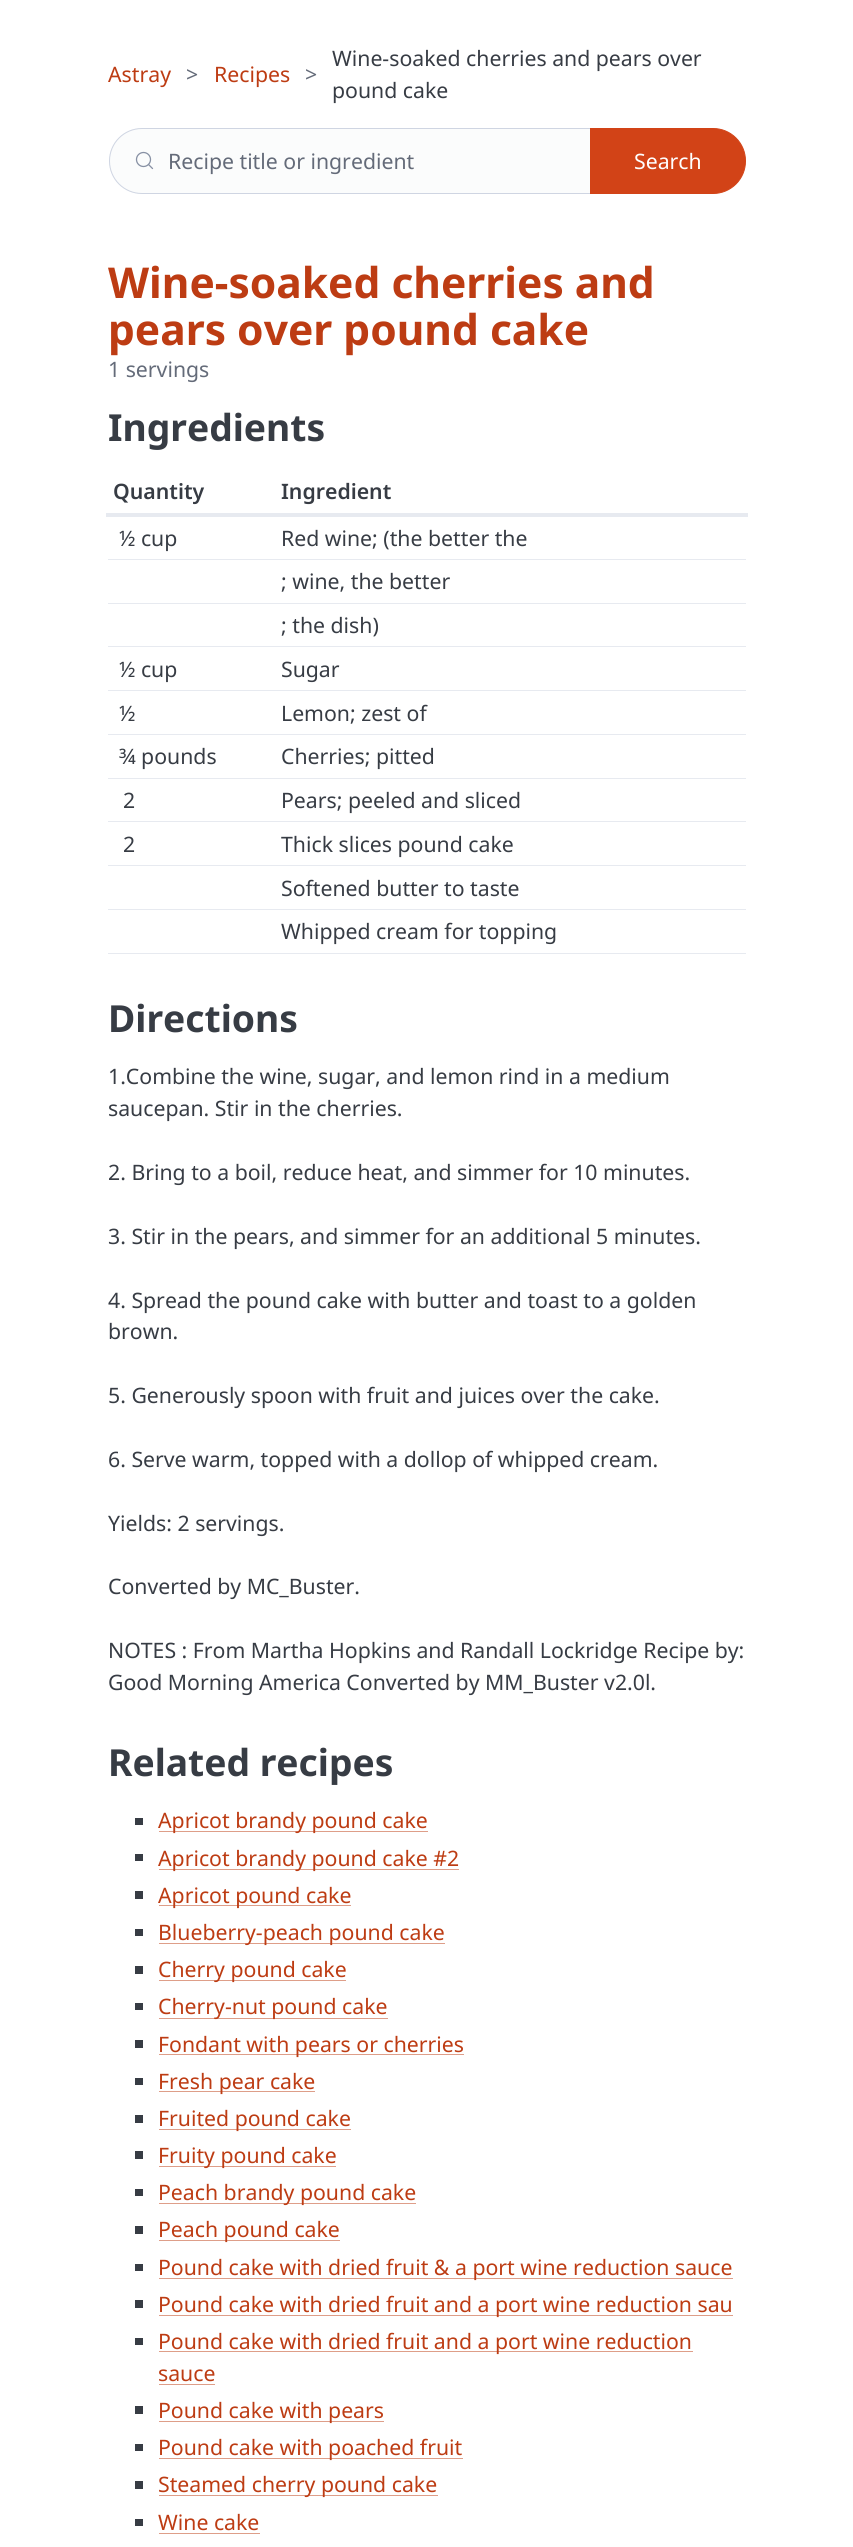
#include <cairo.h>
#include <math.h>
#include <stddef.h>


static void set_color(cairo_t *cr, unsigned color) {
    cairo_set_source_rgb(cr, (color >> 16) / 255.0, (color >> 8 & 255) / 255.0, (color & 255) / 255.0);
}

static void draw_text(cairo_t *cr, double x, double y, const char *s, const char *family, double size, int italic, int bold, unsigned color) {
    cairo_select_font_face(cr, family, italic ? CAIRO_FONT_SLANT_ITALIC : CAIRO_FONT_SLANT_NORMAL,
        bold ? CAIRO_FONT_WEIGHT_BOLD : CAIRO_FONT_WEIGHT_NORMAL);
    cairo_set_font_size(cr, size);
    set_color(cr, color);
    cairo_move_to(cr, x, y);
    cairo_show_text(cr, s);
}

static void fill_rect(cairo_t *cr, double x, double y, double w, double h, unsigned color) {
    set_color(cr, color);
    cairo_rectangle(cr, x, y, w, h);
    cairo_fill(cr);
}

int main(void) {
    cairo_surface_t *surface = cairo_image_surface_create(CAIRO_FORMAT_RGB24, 853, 2547);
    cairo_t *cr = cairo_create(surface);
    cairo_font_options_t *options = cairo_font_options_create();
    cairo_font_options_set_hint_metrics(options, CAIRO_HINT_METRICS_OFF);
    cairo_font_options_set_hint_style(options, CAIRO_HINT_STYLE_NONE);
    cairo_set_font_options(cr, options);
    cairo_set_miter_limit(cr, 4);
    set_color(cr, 0xFFFFFF);
    cairo_paint(cr);
    draw_text(cr, 108, 82, "Astray", "Noto Sans", 21.25, 0, 0, 0xBD3C13);
    draw_text(cr, 186, 82, ">", "Noto Sans", 21.25, 0, 0, 0x646B79);
    draw_text(cr, 214, 82, "Recipes", "Noto Sans", 21.25, 0, 0, 0xBD3C13);
    draw_text(cr, 305, 82, ">", "Noto Sans", 21.25, 0, 0, 0x646B79);
    draw_text(cr, 332, 66, "Wine-soaked cherries and pears over", "Noto Sans", 21.25, 0, 0, 0x373C44);
    draw_text(cr, 332, 98, "pound cake", "Noto Sans", 21.25, 0, 0, 0x373C44);
    set_color(cr, 0xFBFCFC);
    cairo_new_path(cr);
    cairo_move_to(cr, 142, 128);
    cairo_line_to(cr, 591, 128);
    cairo_line_to(cr, 591, 194);
    cairo_line_to(cr, 142, 194);
    cairo_curve_to(cr, 124, 194, 109, 179, 109, 161);
    cairo_curve_to(cr, 109, 143, 124, 128, 142, 128);
    cairo_close_path(cr);
    cairo_fill(cr);
    cairo_arc(cr, 143.5, 159.5, 7, 0, 2 * M_PI);
    set_color(cr, 0x8891A4);
    cairo_set_line_width(cr, 1.3);
    cairo_stroke(cr);
    cairo_new_path(cr);
    cairo_move_to(cr, 152.5, 168.5);
    cairo_line_to(cr, 148.5, 164.5);
    cairo_set_line_cap(cr, CAIRO_LINE_CAP_ROUND);
    cairo_set_line_join(cr, CAIRO_LINE_JOIN_ROUND);
    cairo_stroke(cr);
    cairo_new_path(cr);
    cairo_move_to(cr, 142, 128.5);
    cairo_line_to(cr, 590.5, 128.5);
    cairo_line_to(cr, 590.5, 193.5);
    cairo_line_to(cr, 142, 193.5);
    cairo_curve_to(cr, 124, 193.5, 109.5, 179, 109.5, 161);
    cairo_curve_to(cr, 109.5, 143, 124, 128.5, 142, 128.5);
    cairo_close_path(cr);
    set_color(cr, 0xCFD5E2);
    cairo_set_line_width(cr, 1);
    cairo_set_line_cap(cr, CAIRO_LINE_CAP_BUTT);
    cairo_set_line_join(cr, CAIRO_LINE_JOIN_MITER);
    cairo_stroke(cr);
    draw_text(cr, 168, 169, "Recipe title or ingredient", "Noto Sans", 21.25, 0, 0, 0x646B79);
    set_color(cr, 0xD24317);
    cairo_new_path(cr);
    cairo_move_to(cr, 590.5, 128.5);
    cairo_line_to(cr, 713, 128.5);
    cairo_curve_to(cr, 731, 128.5, 745.5, 143, 745.5, 161);
    cairo_curve_to(cr, 745.5, 179, 731, 193.5, 713, 193.5);
    cairo_line_to(cr, 590.5, 193.5);
    cairo_close_path(cr);
    cairo_fill_preserve(cr);
    cairo_stroke(cr);
    draw_text(cr, 634, 169, "Search", "Noto Sans", 21.25, 0, 0, 0xFFFFFF);
    draw_text(cr, 108, 298, "Wine-soaked cherries and", "Noto Sans", 42.5, 0, 1, 0xBD3C13);
    draw_text(cr, 108, 345, "pears over pound cake", "Noto Sans", 42.5, 0, 1, 0xBD3C13);
    draw_text(cr, 108, 377, "1 servings", "Noto Sans", 21.25, 0, 0, 0x646B79);
    draw_text(cr, 108, 441, "Ingredients", "Noto Sans", 37.25, 0, 1, 0x373C44);
    draw_text(cr, 113, 499, "Quantity", "Noto Sans SemiBold", 21.25, 0, 0, 0x373C44);
    fill_rect(cr, 106, 513, 642, 4, 0xE7EAF0);
    draw_text(cr, 281, 499, "Ingredient", "Noto Sans SemiBold", 21.25, 0, 0, 0x373C44);
    draw_text(cr, 119, 546, "½ cup", "Noto Sans", 21.25, 0, 0, 0x373C44);
    fill_rect(cr, 108, 559, 638, 1, 0xE7EAF0);
    draw_text(cr, 281, 546, "Red wine; (the better the", "Noto Sans", 21.25, 0, 0, 0x373C44);
    fill_rect(cr, 108, 603, 638, 1, 0xE7EAF0);
    draw_text(cr, 281, 589, "; wine, the better", "Noto Sans", 21.25, 0, 0, 0x373C44);
    fill_rect(cr, 108, 646, 638, 1, 0xE7EAF0);
    draw_text(cr, 281, 633, "; the dish)", "Noto Sans", 21.25, 0, 0, 0x373C44);
    draw_text(cr, 119, 677, "½ cup", "Noto Sans", 21.25, 0, 0, 0x373C44);
    fill_rect(cr, 108, 690, 638, 1, 0xE7EAF0);
    draw_text(cr, 281, 677, "Sugar", "Noto Sans", 21.25, 0, 0, 0x373C44);
    draw_text(cr, 119, 721, "½", "Noto Sans", 21.25, 0, 0, 0x373C44);
    fill_rect(cr, 108, 734, 638, 1, 0xE7EAF0);
    draw_text(cr, 281, 721, "Lemon; zest of", "Noto Sans", 21.25, 0, 0, 0x373C44);
    draw_text(cr, 119, 764, "¾ pounds", "Noto Sans", 21.25, 0, 0, 0x373C44);
    fill_rect(cr, 108, 778, 638, 1, 0xE7EAF0);
    draw_text(cr, 281, 764, "Cherries; pitted", "Noto Sans", 21.25, 0, 0, 0x373C44);
    draw_text(cr, 123, 808, "2", "Noto Sans", 21.25, 0, 0, 0x373C44);
    fill_rect(cr, 108, 821, 638, 1, 0xE7EAF0);
    draw_text(cr, 281, 808, "Pears; peeled and sliced", "Noto Sans", 21.25, 0, 0, 0x373C44);
    draw_text(cr, 123, 852, "2", "Noto Sans", 21.25, 0, 0, 0x373C44);
    fill_rect(cr, 108, 865, 638, 1, 0xE7EAF0);
    draw_text(cr, 281, 852, "Thick slices pound cake", "Noto Sans", 21.25, 0, 0, 0x373C44);
    fill_rect(cr, 108, 909, 638, 1, 0xE7EAF0);
    draw_text(cr, 281, 896, "Softened butter to taste", "Noto Sans", 21.25, 0, 0, 0x373C44);
    fill_rect(cr, 108, 953, 638, 1, 0xE7EAF0);
    draw_text(cr, 281, 939, "Whipped cream for topping", "Noto Sans", 21.25, 0, 0, 0x373C44);
    draw_text(cr, 108, 1032, "Directions", "Noto Sans", 37.25, 0, 1, 0x373C44);
    draw_text(cr, 108, 1084, "1.Combine the wine, sugar, and lemon rind in a medium", "Noto Sans", 21.25, 0, 0, 0x373C44);
    draw_text(cr, 108, 1116, "saucepan. Stir in the cherries.", "Noto Sans", 21.25, 0, 0, 0x373C44);
    draw_text(cr, 108, 1180, "2. Bring to a boil, reduce heat, and simmer for 10 minutes.", "Noto Sans", 21.25, 0, 0, 0x373C44);
    draw_text(cr, 108, 1244, "3. Stir in the pears, and simmer for an additional 5 minutes.", "Noto Sans", 21.25, 0, 0, 0x373C44);
    draw_text(cr, 108, 1308, "4. Spread the pound cake with butter and toast to a golden", "Noto Sans", 21.25, 0, 0, 0x373C44);
    draw_text(cr, 108, 1339, "brown.", "Noto Sans", 21.25, 0, 0, 0x373C44);
    draw_text(cr, 108, 1403, "5. Generously spoon with fruit and juices over the cake.", "Noto Sans", 21.25, 0, 0, 0x373C44);
    draw_text(cr, 108, 1467, "6. Serve warm, topped with a dollop of whipped cream.", "Noto Sans", 21.25, 0, 0, 0x373C44);
    draw_text(cr, 108, 1531, "Yields: 2 servings.", "Noto Sans", 21.25, 0, 0, 0x373C44);
    draw_text(cr, 108, 1594, "Converted by MC_Buster.", "Noto Sans", 21.25, 0, 0, 0x373C44);
    draw_text(cr, 108, 1658, "NOTES : From Martha Hopkins and Randall Lockridge Recipe by:", "Noto Sans", 21.25, 0, 0, 0x373C44);
    draw_text(cr, 108, 1690, "Good Morning America Converted by MM_Buster v2.0l.", "Noto Sans", 21.25, 0, 0, 0x373C44);
    draw_text(cr, 108, 1776, "Related recipes", "Noto Sans", 37.25, 0, 1, 0x373C44);
    fill_rect(cr, 135, 1818, 8, 7, 0x373C44);
    fill_rect(cr, 159, 1831, 269, 1, 0xDE9E89);
    draw_text(cr, 158, 1828, "Apricot brandy pound cake", "Noto Sans", 21.25, 0, 0, 0xBD3C13);
    fill_rect(cr, 135, 1854, 8, 7, 0x373C44);
    fill_rect(cr, 159, 1869, 300, 1, 0xDE9E89);
    draw_text(cr, 158, 1866, "Apricot brandy pound cake #2", "Noto Sans", 21.25, 0, 0, 0xBD3C13);
    fill_rect(cr, 135, 1891, 8, 8, 0x373C44);
    fill_rect(cr, 159, 1905, 192, 1, 0xDE9E89);
    draw_text(cr, 158, 1903, "Apricot pound cake", "Noto Sans", 21.25, 0, 0, 0xBD3C13);
    fill_rect(cr, 135, 1929, 8, 7, 0x373C44);
    fill_rect(cr, 159, 1943, 286, 1, 0xDE9E89);
    draw_text(cr, 158, 1940, "Blueberry-peach pound cake", "Noto Sans", 21.25, 0, 0, 0xBD3C13);
    fill_rect(cr, 135, 1966, 8, 8, 0x373C44);
    fill_rect(cr, 159, 1980, 187, 1, 0xDE9E89);
    draw_text(cr, 158, 1977, "Cherry pound cake", "Noto Sans", 21.25, 0, 0, 0xBD3C13);
    fill_rect(cr, 135, 2003, 8, 7, 0x373C44);
    fill_rect(cr, 159, 2018, 229, 1, 0xDE9E89);
    draw_text(cr, 158, 2014, "Cherry-nut pound cake", "Noto Sans", 21.25, 0, 0, 0xBD3C13);
    fill_rect(cr, 135, 2040, 8, 8, 0x373C44);
    fill_rect(cr, 159, 2054, 305, 1, 0xDE9E89);
    draw_text(cr, 158, 2052, "Fondant with pears or cherries", "Noto Sans", 21.25, 0, 0, 0xBD3C13);
    fill_rect(cr, 135, 2078, 8, 7, 0x373C44);
    fill_rect(cr, 159, 2091, 156, 1, 0xDE9E89);
    draw_text(cr, 158, 2089, "Fresh pear cake", "Noto Sans", 21.25, 0, 0, 0xBD3C13);
    fill_rect(cr, 135, 2115, 8, 8, 0x373C44);
    fill_rect(cr, 159, 2129, 192, 1, 0xDE9E89);
    draw_text(cr, 158, 2126, "Fruited pound cake", "Noto Sans", 21.25, 0, 0, 0xBD3C13);
    fill_rect(cr, 135, 2151, 8, 8, 0x373C44);
    fill_rect(cr, 159, 2166, 177, 1, 0xDE9E89);
    draw_text(cr, 158, 2163, "Fruity pound cake", "Noto Sans", 21.25, 0, 0, 0xBD3C13);
    fill_rect(cr, 135, 2189, 8, 7, 0x373C44);
    fill_rect(cr, 159, 2203, 257, 1, 0xDE9E89);
    draw_text(cr, 158, 2200, "Peach brandy pound cake", "Noto Sans", 21.25, 0, 0, 0xBD3C13);
    fill_rect(cr, 135, 2226, 8, 8, 0x373C44);
    fill_rect(cr, 159, 2240, 181, 1, 0xDE9E89);
    draw_text(cr, 158, 2237, "Peach pound cake", "Noto Sans", 21.25, 0, 0, 0xBD3C13);
    fill_rect(cr, 135, 2264, 8, 7, 0x373C44);
    fill_rect(cr, 159, 2278, 574, 1, 0xDE9E89);
    draw_text(cr, 158, 2275, "Pound cake with dried fruit & a port wine reduction sauce", "Noto Sans", 21.25, 0, 0, 0xBD3C13);
    fill_rect(cr, 135, 2300, 8, 8, 0x373C44);
    fill_rect(cr, 159, 2315, 574, 1, 0xDE9E89);
    draw_text(cr, 158, 2312, "Pound cake with dried fruit and a port wine reduction sau", "Noto Sans", 21.25, 0, 0, 0xBD3C13);
    fill_rect(cr, 135, 2338, 8, 7, 0x373C44);
    fill_rect(cr, 159, 2351, 534, 1, 0xDE9E89);
    draw_text(cr, 158, 2349, "Pound cake with dried fruit and a port wine reduction", "Noto Sans", 21.25, 0, 0, 0xBD3C13);
    draw_text(cr, 158, 2381, "sauce", "Noto Sans", 21.25, 0, 0, 0xBD3C13);
    fill_rect(cr, 159, 2384, 56, 1, 0xDE9E89);
    fill_rect(cr, 135, 2406, 8, 8, 0x373C44);
    fill_rect(cr, 159, 2421, 225, 1, 0xDE9E89);
    draw_text(cr, 158, 2418, "Pound cake with pears", "Noto Sans", 21.25, 0, 0, 0xBD3C13);
    fill_rect(cr, 135, 2444, 8, 7, 0x373C44);
    fill_rect(cr, 159, 2458, 304, 1, 0xDE9E89);
    draw_text(cr, 158, 2455, "Pound cake with poached fruit", "Noto Sans", 21.25, 0, 0, 0xBD3C13);
    fill_rect(cr, 135, 2481, 8, 8, 0x373C44);
    fill_rect(cr, 159, 2495, 279, 1, 0xDE9E89);
    draw_text(cr, 158, 2492, "Steamed cherry pound cake", "Noto Sans", 21.25, 0, 0, 0xBD3C13);
    fill_rect(cr, 135, 2519, 8, 7, 0x373C44);
    draw_text(cr, 158, 2530, "Wine cake", "Noto Sans", 21.25, 0, 0, 0xBD3C13);
    fill_rect(cr, 159, 2533, 101, 1, 0xDE9E89);
    cairo_surface_write_to_png(surface, "output.png");
    cairo_font_options_destroy(options);
    cairo_destroy(cr);
    cairo_surface_destroy(surface);
    return 0;
}
